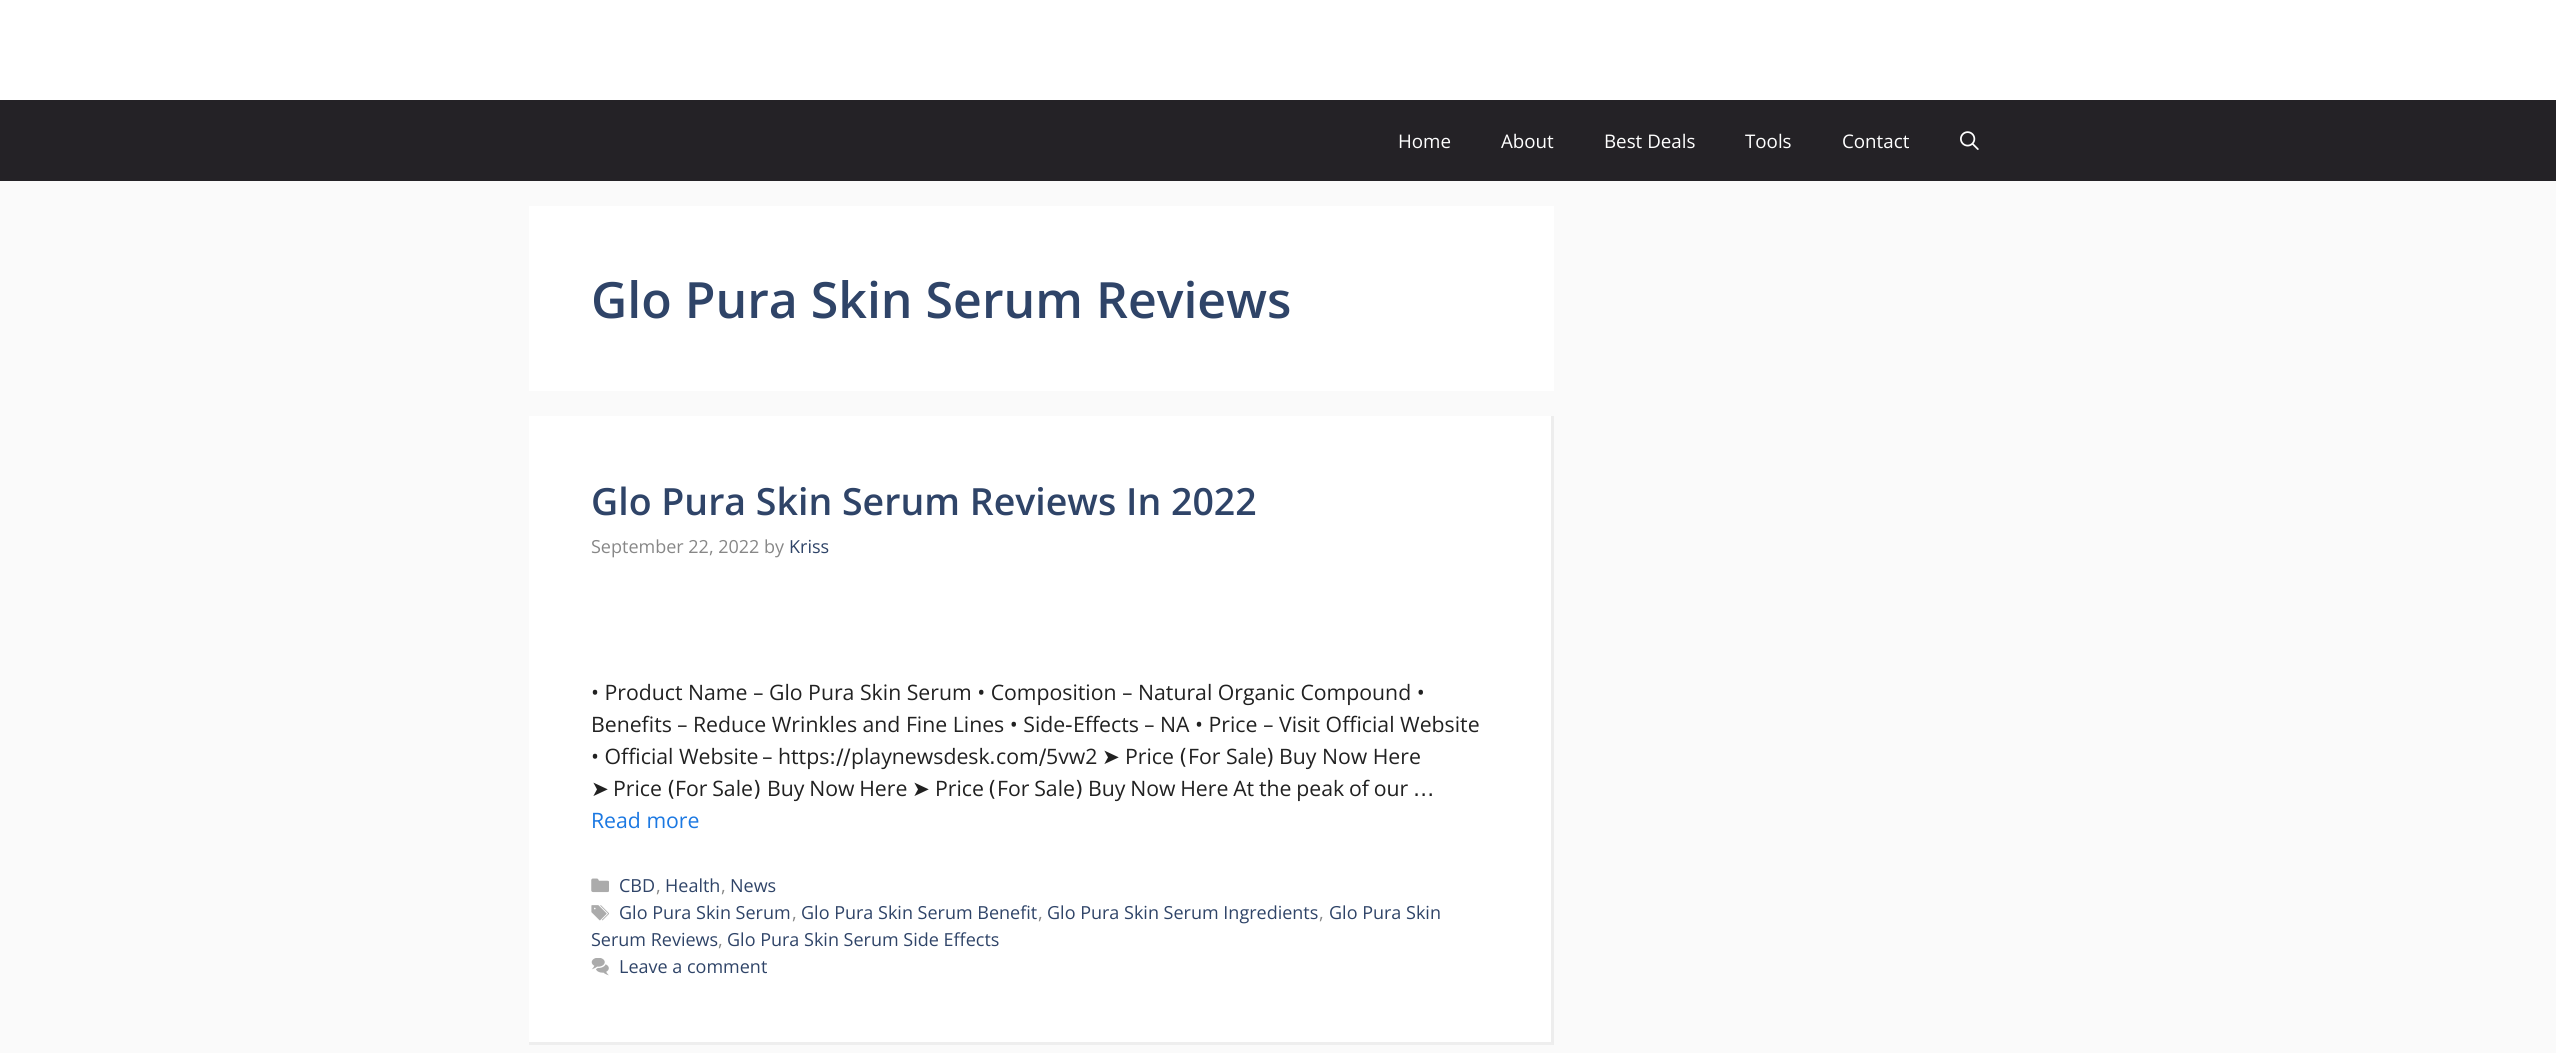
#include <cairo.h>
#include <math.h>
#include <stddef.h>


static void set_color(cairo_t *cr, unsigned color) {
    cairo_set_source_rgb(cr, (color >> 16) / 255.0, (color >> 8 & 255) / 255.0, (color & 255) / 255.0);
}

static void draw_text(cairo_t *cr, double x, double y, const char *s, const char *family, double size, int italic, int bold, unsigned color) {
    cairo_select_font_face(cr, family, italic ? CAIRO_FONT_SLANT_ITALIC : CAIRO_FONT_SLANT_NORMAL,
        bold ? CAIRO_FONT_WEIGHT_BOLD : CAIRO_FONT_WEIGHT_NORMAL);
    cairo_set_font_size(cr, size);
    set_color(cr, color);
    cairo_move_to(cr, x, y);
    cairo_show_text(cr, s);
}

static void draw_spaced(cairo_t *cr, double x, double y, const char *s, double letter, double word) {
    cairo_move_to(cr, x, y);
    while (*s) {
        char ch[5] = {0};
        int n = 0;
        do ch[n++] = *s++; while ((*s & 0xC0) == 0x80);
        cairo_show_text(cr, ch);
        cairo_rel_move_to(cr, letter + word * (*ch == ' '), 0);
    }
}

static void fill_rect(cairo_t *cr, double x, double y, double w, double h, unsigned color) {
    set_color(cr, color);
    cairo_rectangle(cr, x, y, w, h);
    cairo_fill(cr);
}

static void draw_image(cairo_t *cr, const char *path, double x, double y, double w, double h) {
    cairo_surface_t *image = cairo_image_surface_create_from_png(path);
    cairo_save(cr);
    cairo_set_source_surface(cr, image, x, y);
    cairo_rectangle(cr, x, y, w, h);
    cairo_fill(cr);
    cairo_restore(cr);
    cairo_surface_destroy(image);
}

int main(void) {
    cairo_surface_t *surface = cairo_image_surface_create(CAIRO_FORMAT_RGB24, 2556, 1053);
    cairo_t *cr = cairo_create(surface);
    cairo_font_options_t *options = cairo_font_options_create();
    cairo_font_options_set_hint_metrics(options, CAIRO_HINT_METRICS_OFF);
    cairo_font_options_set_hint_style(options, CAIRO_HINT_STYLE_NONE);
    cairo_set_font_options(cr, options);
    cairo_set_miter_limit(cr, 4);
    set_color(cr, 0xFAFAFA);
    cairo_paint(cr);
    fill_rect(cr, 0, 0, 2556, 100, 0xFFFFFF);
    fill_rect(cr, 0, 100, 2556, 81, 0x242226);
    draw_text(cr, 1398, 148, "Home", "Open Sans", 18.75, 0, 0, 0xFFFFFF);
    draw_text(cr, 1501, 148, "About", "Open Sans", 18.75, 0, 0, 0xFFFFFF);
    draw_text(cr, 1604, 148, "Best Deals", "Open Sans", 18.75, 0, 0, 0xFFFFFF);
    draw_text(cr, 1745, 148, "Tools", "Open Sans", 18.75, 0, 0, 0xFFFFFF);
    draw_text(cr, 1842, 148, "Contact", "Open Sans", 18.75, 0, 0, 0xFFFFFF);
    draw_image(cr, "assets/img1.png", 1960, 131, 19, 19);
    fill_rect(cr, 529, 206, 1025, 185, 0xFFFFFF);
    draw_text(cr, 591, 318, "Glo Pura Skin Serum Reviews", "Open Sans SemiBold", 50, 0, 0, 0x2F4468);
    fill_rect(cr, 529, 416, 1025, 629, 0xFFFFFF);
    set_color(cr, 0xEDEDED);
    cairo_new_path(cr);
    cairo_move_to(cr, 1554, 416);
    cairo_line_to(cr, 1554, 1045);
    cairo_line_to(cr, 1551, 1042);
    cairo_line_to(cr, 1551, 416);
    cairo_close_path(cr);
    cairo_fill(cr);
    cairo_set_source_rgba(cr, 0, 0, 0, 0.07);
    cairo_new_path(cr);
    cairo_move_to(cr, 1554, 1045);
    cairo_line_to(cr, 529, 1045);
    cairo_line_to(cr, 529, 1042);
    cairo_line_to(cr, 1551, 1042);
    cairo_close_path(cr);
    cairo_fill(cr);
    draw_text(cr, 591, 515, "Glo Pura Skin Serum Reviews In 2022", "Open Sans SemiBold", 37.5, 0, 0, 0x2F4468);
    draw_text(cr, 591, 553, "September 22, 2022 by", "Open Sans", 18, 0, 0, 0x878787);
    draw_text(cr, 789, 553, "Kriss", "Open Sans", 18, 0, 0, 0x2F4468);
    draw_text(cr, 591, 700, "• Product Name", "Open Sans", 21.25, 0, 0, 0x212121);
    draw_text(cr, 753, 700, "–", "DejaVu Sans", 21.25, 0, 0, 0x212121);
    draw_text(cr, 769, 700, "Glo Pura Skin Serum • Composition", "Open Sans", 21.25, 0, 0, 0x212121);
    draw_text(cr, 1122, 700, "–", "DejaVu Sans", 21.25, 0, 0, 0x212121);
    draw_text(cr, 1138, 700, "Natural Organic Compound •", "Open Sans", 21.25, 0, 0, 0x212121);
    draw_text(cr, 591, 732, "Benefits", "Open Sans", 21.25, 0, 0, 0x212121);
    draw_text(cr, 677, 732, "–", "DejaVu Sans", 21.25, 0, 0, 0x212121);
    draw_text(cr, 693, 732, "Reduce Wrinkles and Fine Lines • Side", "Open Sans", 21.25, 0, 0, 0x212121);
    draw_text(cr, 1065, 732, "-", "DejaVu Sans", 21.25, 0, 0, 0x212121);
    draw_text(cr, 1073, 732, "Effects", "Open Sans", 21.25, 0, 0, 0x212121);
    draw_text(cr, 1144, 732, "–", "DejaVu Sans", 21.25, 0, 0, 0x212121);
    draw_text(cr, 1160, 732, "NA • Price", "Open Sans", 21.25, 0, 0, 0x212121);
    draw_text(cr, 1263, 732, "–", "DejaVu Sans", 21.25, 0, 0, 0x212121);
    draw_text(cr, 1279, 732, "Visit Official Website", "Open Sans", 21.25, 0, 0, 0x212121);
    draw_text(cr, 591, 764, "• Official Website", "Open Sans", 21.25, 0, 0, 0x212121);
    draw_text(cr, 762, 764, "–", "DejaVu Sans", 21.25, 0, 0, 0x212121);
    draw_text(cr, 778, 764, "https", "Open Sans", 21.25, 0, 0, 0x212121);
    draw_text(cr, 829, 764, "://", "DejaVu Sans", 21.25, 0, 0, 0x212121);
    draw_text(cr, 851, 764, "playnewsdesk", "Open Sans", 21.25, 0, 0, 0x212121);
    draw_text(cr, 996, 764, "com", "Open Sans", 21.25, 0, 0, 0x212121);
    draw_text(cr, 1039, 764, "/", "DejaVu Sans", 21.25, 0, 0, 0x212121);
    draw_text(cr, 1046, 764, "5vw2", "Open Sans", 21.25, 0, 0, 0x212121);
    draw_text(cr, 1102, 764, "➤", "DejaVu Sans", 21.25, 0, 0, 0x212121);
    draw_text(cr, 1125, 764, "Price", "Open Sans", 21.25, 0, 0, 0x212121);
    draw_text(cr, 1179, 764, "(", "DejaVu Sans", 21.25, 0, 0, 0x212121);
    draw_text(cr, 1188, 764, "For Sale", "Open Sans", 21.25, 0, 0, 0x212121);
    draw_text(cr, 1266, 764, ")", "DejaVu Sans", 21.25, 0, 0, 0x212121);
    draw_text(cr, 1279, 764, "Buy Now Here", "Open Sans", 21.25, 0, 0, 0x212121);
    draw_text(cr, 989, 764, ".", "DejaVu Sans", 21.25, 0, 0, 0x212121);
    draw_text(cr, 591, 796, "➤", "DejaVu Sans", 21.25, 0, 0, 0x212121);
    draw_text(cr, 613, 796, "Price", "Open Sans", 21.25, 0, 0, 0x212121);
    draw_text(cr, 667, 796, "(", "DejaVu Sans", 21.25, 0, 0, 0x212121);
    cairo_select_font_face(cr, "Open Sans", CAIRO_FONT_SLANT_NORMAL, CAIRO_FONT_WEIGHT_NORMAL);
    draw_spaced(cr, 675, 796, "For Sale", 0, -0.75);
    draw_text(cr, 753, 796, ")", "DejaVu Sans", 21.25, 0, 0, 0x212121);
    cairo_select_font_face(cr, "Open Sans", CAIRO_FONT_SLANT_NORMAL, CAIRO_FONT_WEIGHT_NORMAL);
    draw_spaced(cr, 767, 796, "Buy Now Here", 0, -0.75);
    draw_text(cr, 912, 796, "➤", "DejaVu Sans", 21.25, 0, 0, 0x212121);
    draw_text(cr, 935, 796, "Price", "Open Sans", 21.25, 0, 0, 0x212121);
    draw_text(cr, 988, 796, "(", "DejaVu Sans", 21.25, 0, 0, 0x212121);
    cairo_select_font_face(cr, "Open Sans", CAIRO_FONT_SLANT_NORMAL, CAIRO_FONT_WEIGHT_NORMAL);
    draw_spaced(cr, 997, 796, "For Sale", 0, -0.75);
    draw_text(cr, 1075, 796, ")", "DejaVu Sans", 21.25, 0, 0, 0x212121);
    cairo_select_font_face(cr, "Open Sans", CAIRO_FONT_SLANT_NORMAL, CAIRO_FONT_WEIGHT_NORMAL);
    draw_spaced(cr, 1088, 796, "Buy Now Here At the peak of our", 0, -0.75);
    draw_text(cr, 1413, 796, "…", "DejaVu Sans", 21.25, 0, 0, 0x212121);
    draw_text(cr, 591, 828, "Read more", "Open Sans", 21.25, 0, 0, 0x1B78E2);
    draw_image(cr, "assets/img2.png", 591, 878, 18, 15);
    draw_text(cr, 619, 892, "CBD", "Open Sans", 18, 0, 0, 0x2F4468);
    draw_text(cr, 656, 892, ",", "Open Sans", 18, 0, 0, 0x878787);
    draw_text(cr, 665, 892, "Health", "Open Sans", 18, 0, 0, 0x2F4468);
    draw_text(cr, 721, 892, ",", "Open Sans", 18, 0, 0, 0x878787);
    draw_text(cr, 730, 892, "News", "Open Sans", 18, 0, 0, 0x2F4468);
    draw_image(cr, "assets/img3.png", 591, 905, 18, 16);
    draw_text(cr, 619, 919, "Glo Pura Skin Serum", "Open Sans", 18, 0, 0, 0x2F4468);
    draw_text(cr, 792, 919, ",", "Open Sans", 18, 0, 0, 0x878787);
    draw_text(cr, 801, 919, "Glo Pura Skin Serum Benefit", "Open Sans", 18, 0, 0, 0x2F4468);
    draw_text(cr, 1038, 919, ",", "Open Sans", 18, 0, 0, 0x878787);
    draw_text(cr, 1047, 919, "Glo Pura Skin Serum Ingredients", "Open Sans", 18, 0, 0, 0x2F4468);
    draw_text(cr, 1319, 919, ",", "Open Sans", 18, 0, 0, 0x878787);
    draw_text(cr, 1329, 919, "Glo Pura Skin", "Open Sans", 18, 0, 0, 0x2F4468);
    draw_text(cr, 591, 946, "Serum Reviews", "Open Sans", 18, 0, 0, 0x2F4468);
    draw_text(cr, 718, 946, ",", "Open Sans", 18, 0, 0, 0x878787);
    draw_text(cr, 727, 946, "Glo Pura Skin Serum Side Effects", "Open Sans", 18, 0, 0, 0x2F4468);
    draw_image(cr, "assets/img4.png", 591, 958, 18, 18);
    draw_text(cr, 619, 973, "Leave a comment", "Open Sans", 18, 0, 0, 0x2F4468);
    cairo_surface_write_to_png(surface, "output.png");
    cairo_font_options_destroy(options);
    cairo_destroy(cr);
    cairo_surface_destroy(surface);
    return 0;
}
